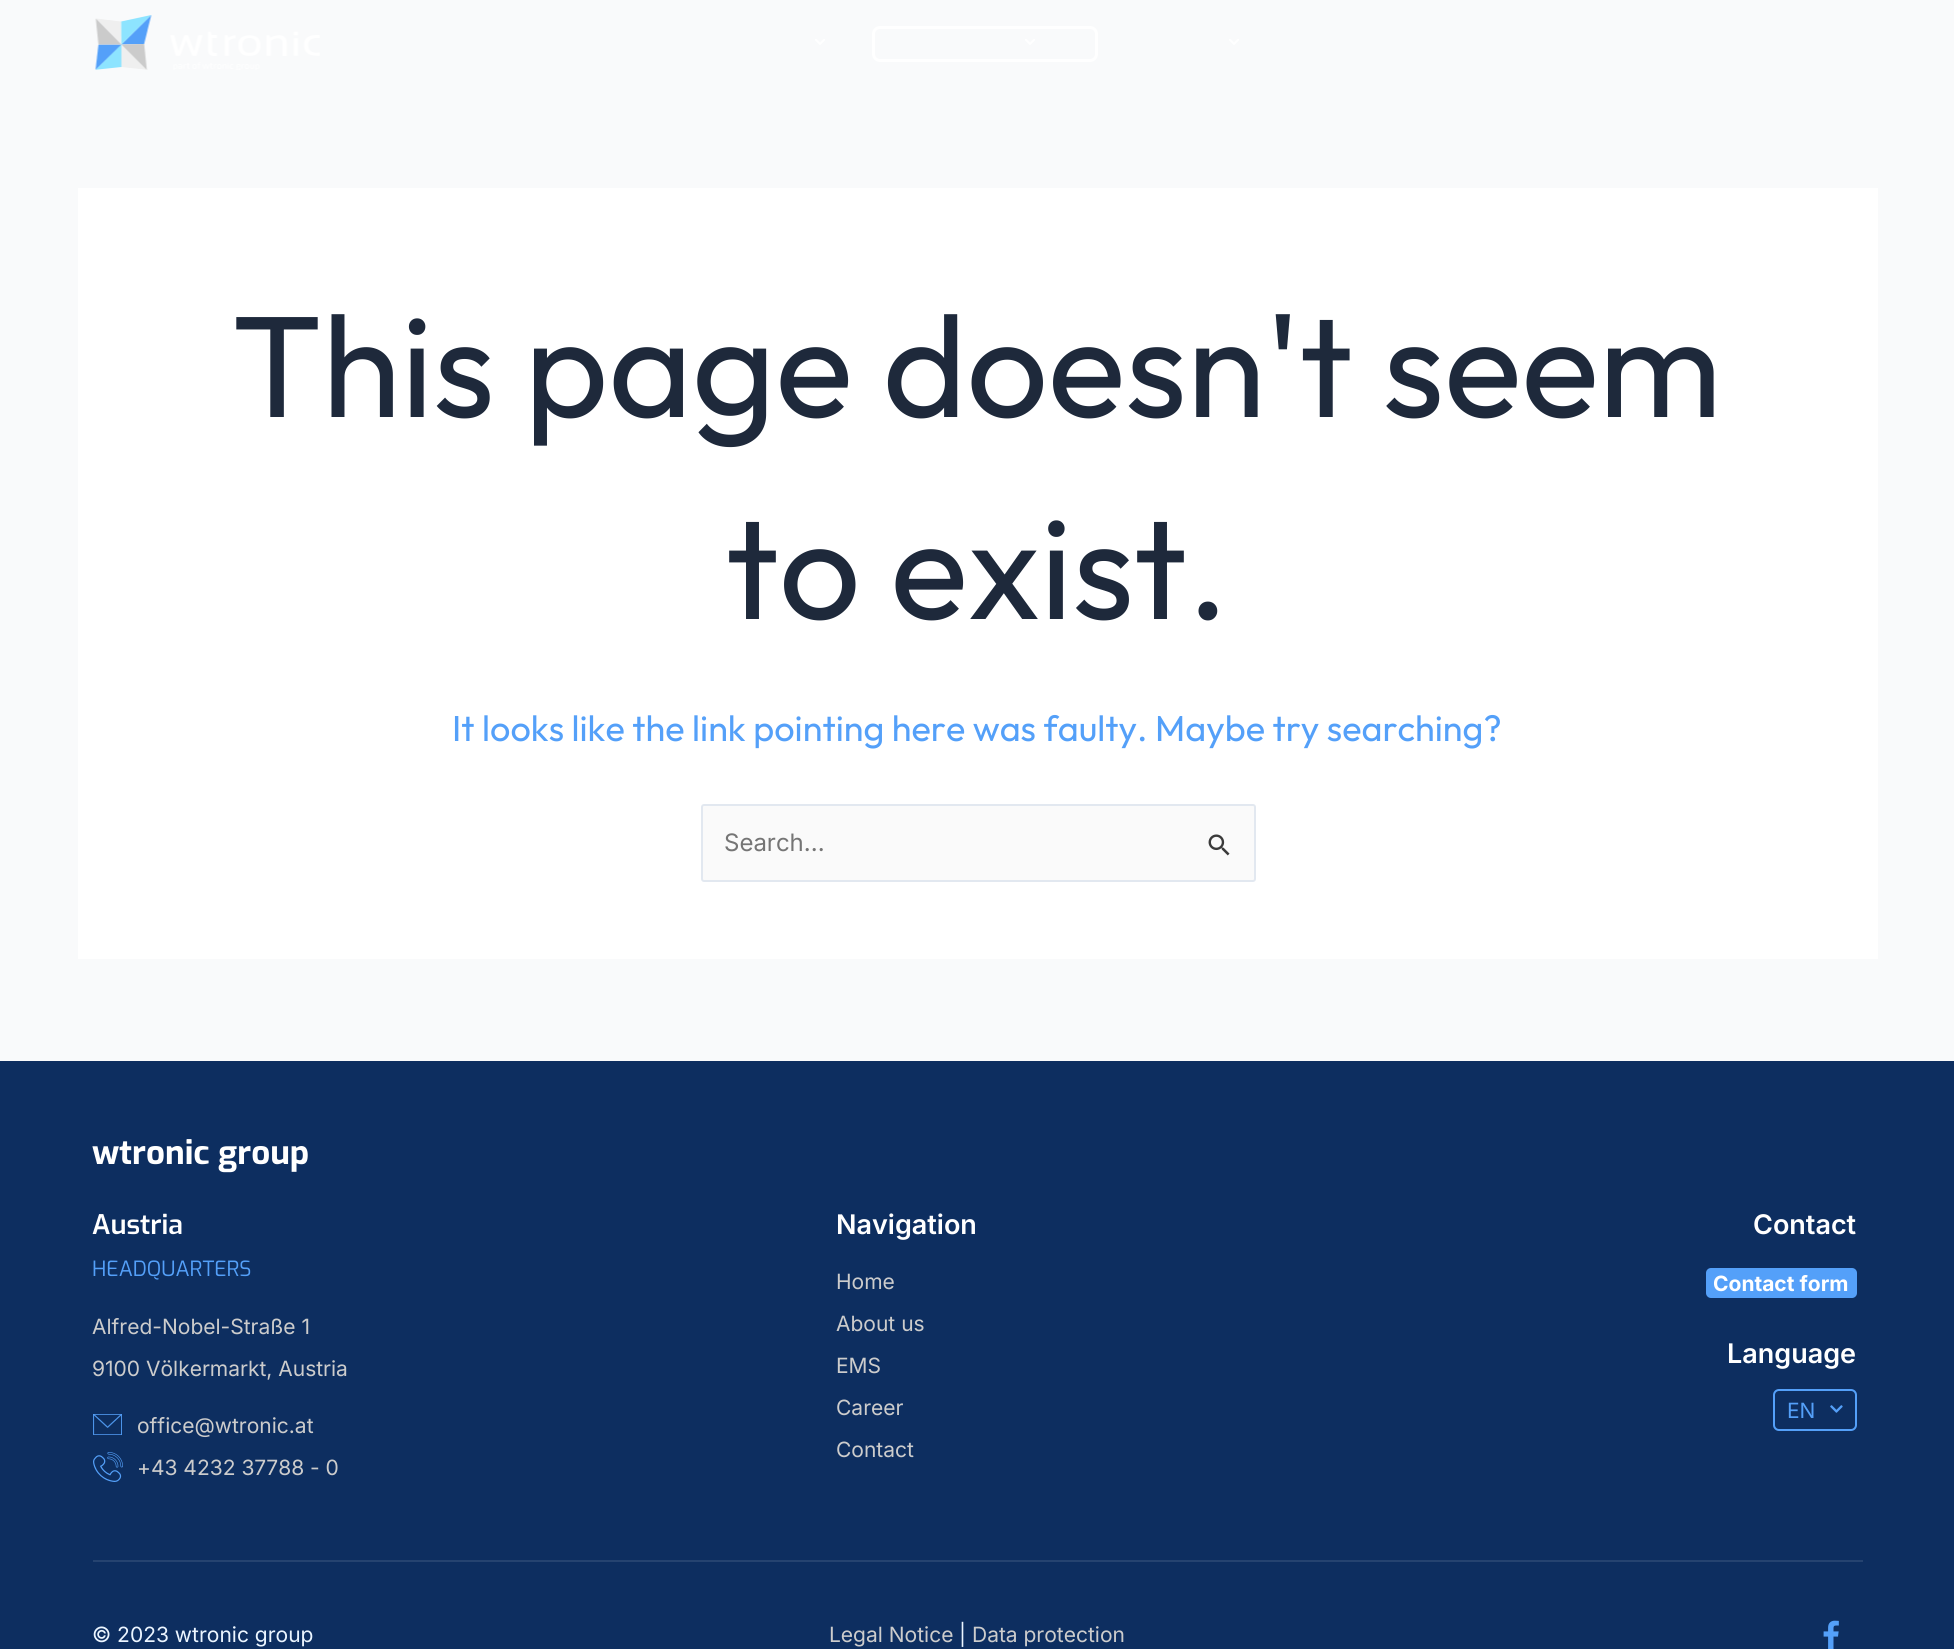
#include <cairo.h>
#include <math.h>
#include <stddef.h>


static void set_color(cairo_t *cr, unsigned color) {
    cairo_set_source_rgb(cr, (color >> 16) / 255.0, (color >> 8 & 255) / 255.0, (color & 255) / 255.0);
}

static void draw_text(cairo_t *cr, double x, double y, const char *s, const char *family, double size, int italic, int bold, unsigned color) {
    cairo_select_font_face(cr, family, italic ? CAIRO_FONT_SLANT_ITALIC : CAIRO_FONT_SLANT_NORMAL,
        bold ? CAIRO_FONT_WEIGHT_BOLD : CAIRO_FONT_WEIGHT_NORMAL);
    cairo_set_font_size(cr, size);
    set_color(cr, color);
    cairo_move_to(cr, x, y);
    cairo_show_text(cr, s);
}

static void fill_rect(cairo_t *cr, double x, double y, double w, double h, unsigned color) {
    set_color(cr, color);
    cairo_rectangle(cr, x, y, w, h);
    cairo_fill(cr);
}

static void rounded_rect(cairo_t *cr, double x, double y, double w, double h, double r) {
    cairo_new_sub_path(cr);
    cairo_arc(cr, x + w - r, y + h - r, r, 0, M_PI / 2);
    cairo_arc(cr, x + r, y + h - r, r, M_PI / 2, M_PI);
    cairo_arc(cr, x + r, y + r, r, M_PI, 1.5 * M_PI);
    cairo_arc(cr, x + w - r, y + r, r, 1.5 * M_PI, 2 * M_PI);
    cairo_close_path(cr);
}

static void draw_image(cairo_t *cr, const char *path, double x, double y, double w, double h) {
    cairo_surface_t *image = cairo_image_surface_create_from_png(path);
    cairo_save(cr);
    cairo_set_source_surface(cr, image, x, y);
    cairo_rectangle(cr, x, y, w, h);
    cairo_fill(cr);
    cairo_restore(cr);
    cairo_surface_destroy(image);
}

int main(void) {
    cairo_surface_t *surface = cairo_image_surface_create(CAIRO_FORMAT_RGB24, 1954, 1649);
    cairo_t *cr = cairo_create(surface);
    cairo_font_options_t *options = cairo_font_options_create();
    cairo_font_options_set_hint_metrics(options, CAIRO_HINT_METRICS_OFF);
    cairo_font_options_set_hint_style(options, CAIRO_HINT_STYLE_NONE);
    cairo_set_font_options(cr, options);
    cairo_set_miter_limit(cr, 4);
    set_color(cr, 0xF9FAFB);
    cairo_paint(cr);
    draw_image(cr, "assets/img1.png", 95, 15, 225, 55);
    draw_image(cr, "assets/img2.png", 815, 39, 10, 6);
    rounded_rect(cr, 873.5, 27.5, 223, 33, 6.5);
    set_color(cr, 0xFFFFFF);
    cairo_set_line_width(cr, 3);
    cairo_stroke(cr);
    draw_image(cr, "assets/img2.png", 1025, 39, 10, 6);
    draw_image(cr, "assets/img2.png", 1229, 39, 10, 6);
    fill_rect(cr, 78, 188, 1800, 771, 0xFFFFFF);
    draw_text(cr, 232, 417, "This page doesn't seem", "Outfit", 144, 0, 0, 0x1E293B);
    draw_text(cr, 726, 619, "to exist.", "Outfit", 144, 0, 0, 0x1E293B);
    draw_text(cr, 452, 741, "It looks like the link pointing here was faulty. Maybe try searching?", "Outfit", 36, 0, 0, 0x54A0F9);
    set_color(cr, 0xFAFAFA);
    rounded_rect(cr, 702, 805, 553, 76, 2);
    cairo_fill_preserve(cr);
    set_color(cr, 0xE2E8F0);
    cairo_set_line_width(cr, 2);
    cairo_stroke(cr);
    draw_text(cr, 724, 851, "Search...", "Inter", 24, 0, 0, 0x757575);
    draw_image(cr, "assets/img3.png", 1208, 834, 22, 22);
    fill_rect(cr, 0, 1061, 1954, 588, 0x0D2E60);
    draw_text(cr, 92, 1164, "wtronic group", "Exo", 33, 0, 1, 0xFFFFFF);
    fill_rect(cr, 93, 1560, 1770, 2, 0x254370);
    draw_text(cr, 92, 1234, "Austria", "Exo SemiBold", 27, 0, 0, 0xFFFFFF);
    draw_text(cr, 92, 1276, "HEADQUARTERS", "Exo", 21, 0, 0, 0x54A0F9);
    draw_text(cr, 92, 1334, "Alfred-Nobel-Straße 1", "Inter", 21, 0, 0, 0xCCCCCC);
    draw_text(cr, 92, 1376, "9100 Völkermarkt, Austria", "Inter", 21, 0, 0, 0xCCCCCC);
    draw_image(cr, "assets/img4.png", 93, 1414, 29, 21);
    draw_text(cr, 137, 1433, "office@wtronic.at", "Inter", 21, 0, 0, 0xCCCCCC);
    draw_image(cr, "assets/img5.png", 93, 1452, 30, 30);
    draw_text(cr, 137, 1475, "+43 4232 37788 - 0", "Inter", 21, 0, 0, 0xCCCCCC);
    draw_text(cr, 836, 1234, "Navigation", "Inter SemiBold", 27, 0, 0, 0xFFFFFF);
    draw_text(cr, 836, 1289, "Home", "Inter", 21, 0, 0, 0xCCCCCC);
    draw_text(cr, 836, 1331, "About us", "Inter", 21, 0, 0, 0xCCCCCC);
    draw_text(cr, 836, 1373, "EMS", "Inter", 21, 0, 0, 0xCCCCCC);
    draw_text(cr, 836, 1415, "Career", "Inter", 21, 0, 0, 0xCCCCCC);
    draw_text(cr, 836, 1457, "Contact", "Inter", 21, 0, 0, 0xCCCCCC);
    draw_text(cr, 1753, 1234, "Contact", "Inter SemiBold", 27, 0, 0, 0xFFFFFF);
    set_color(cr, 0x54A0F9);
    rounded_rect(cr, 1706, 1268, 151, 30, 5);
    cairo_fill(cr);
    draw_text(cr, 1713, 1291, "Contact form", "Inter", 21, 0, 1, 0xFFFFFF);
    draw_text(cr, 1727, 1363, "Language", "Inter SemiBold", 27, 0, 0, 0xFFFFFF);
    rounded_rect(cr, 1774, 1390, 82, 40, 5);
    set_color(cr, 0x54A0F9);
    cairo_stroke(cr);
    draw_text(cr, 1787, 1418, "EN", "Inter", 21, 0, 0, 0x54A0F9);
    draw_image(cr, "assets/img6.png", 1830, 1405, 13, 8);
    draw_text(cr, 92, 1642, "© 2023 wtronic group", "Inter", 21, 0, 0, 0xEBF5FF);
    draw_text(cr, 829, 1642, "Legal Notice", "Inter", 21, 0, 0, 0xCCCCCC);
    draw_text(cr, 959, 1642, "|", "Inter", 21, 0, 0, 0xEBF5FF);
    draw_text(cr, 972, 1642, "Data protection", "Inter", 21, 0, 0, 0xCCCCCC);
    draw_image(cr, "assets/img7.png", 1823, 1620, 16, 29);
    cairo_surface_write_to_png(surface, "output.png");
    cairo_font_options_destroy(options);
    cairo_destroy(cr);
    cairo_surface_destroy(surface);
    return 0;
}
